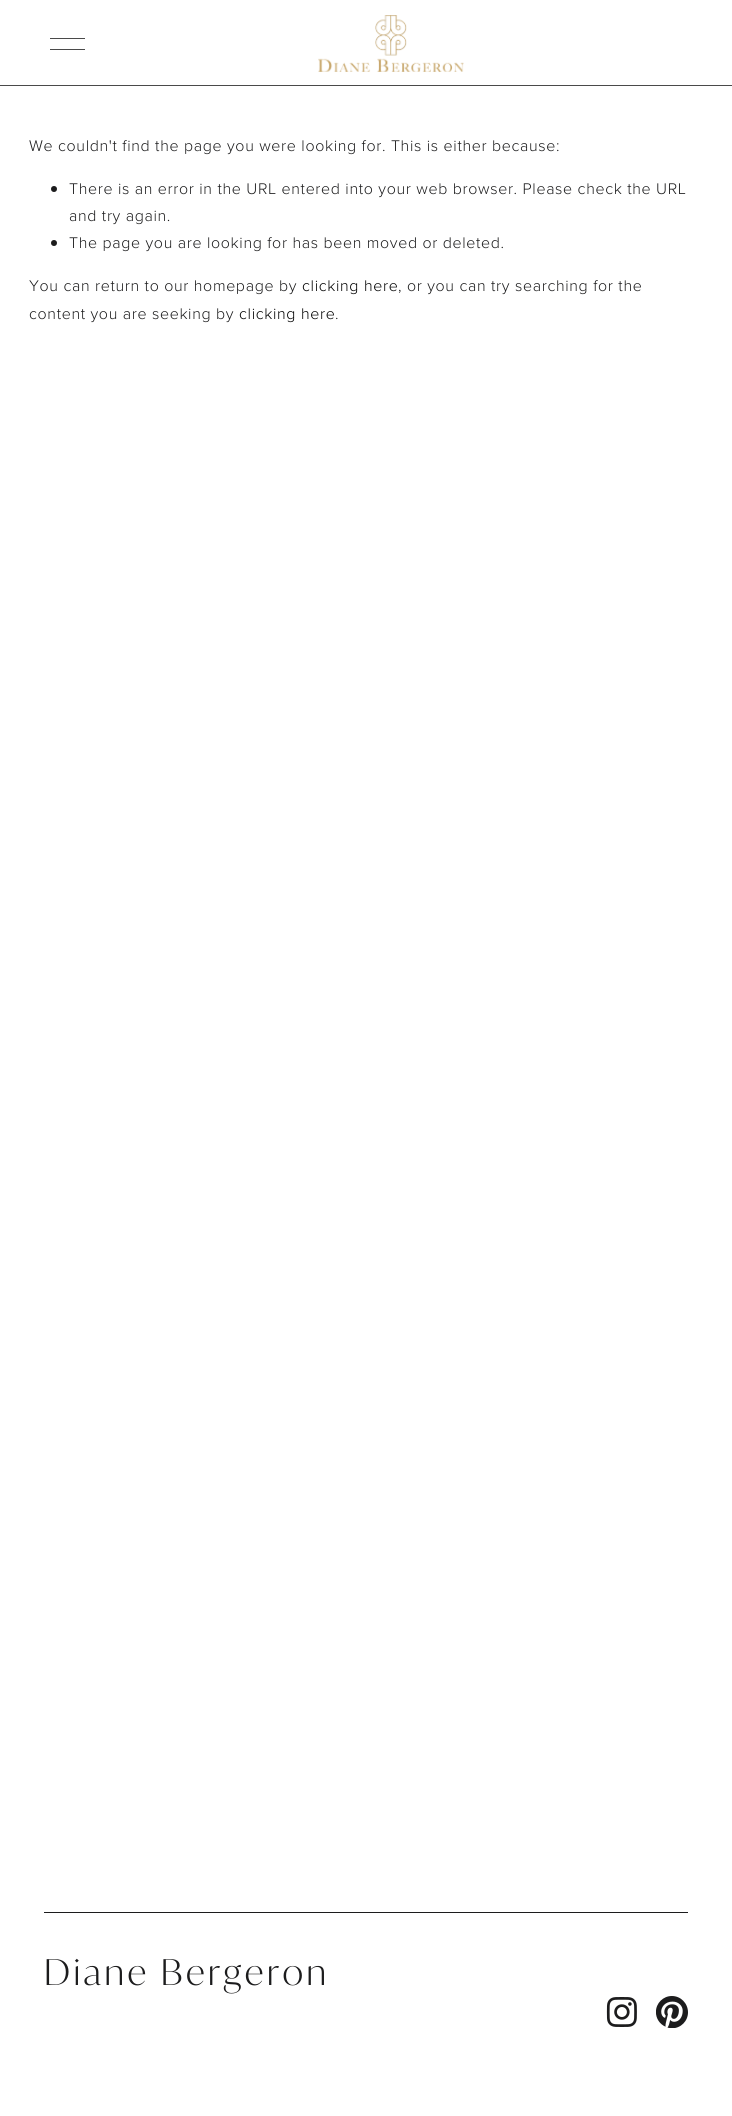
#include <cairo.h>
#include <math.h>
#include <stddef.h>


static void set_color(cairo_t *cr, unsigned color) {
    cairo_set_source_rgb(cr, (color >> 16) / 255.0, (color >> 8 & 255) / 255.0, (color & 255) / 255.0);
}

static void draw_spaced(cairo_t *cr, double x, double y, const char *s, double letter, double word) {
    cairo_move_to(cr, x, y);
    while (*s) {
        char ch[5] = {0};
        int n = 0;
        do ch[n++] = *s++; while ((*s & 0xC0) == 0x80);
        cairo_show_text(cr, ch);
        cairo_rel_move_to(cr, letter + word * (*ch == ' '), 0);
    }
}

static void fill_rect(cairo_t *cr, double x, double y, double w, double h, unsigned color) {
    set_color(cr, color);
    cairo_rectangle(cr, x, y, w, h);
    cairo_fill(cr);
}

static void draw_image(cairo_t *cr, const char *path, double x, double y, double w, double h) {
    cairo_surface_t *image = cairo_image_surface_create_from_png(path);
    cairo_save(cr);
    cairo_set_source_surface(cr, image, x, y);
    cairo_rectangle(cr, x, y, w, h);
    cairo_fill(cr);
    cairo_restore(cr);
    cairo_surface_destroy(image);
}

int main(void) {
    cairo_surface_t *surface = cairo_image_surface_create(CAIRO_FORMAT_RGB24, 732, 2116);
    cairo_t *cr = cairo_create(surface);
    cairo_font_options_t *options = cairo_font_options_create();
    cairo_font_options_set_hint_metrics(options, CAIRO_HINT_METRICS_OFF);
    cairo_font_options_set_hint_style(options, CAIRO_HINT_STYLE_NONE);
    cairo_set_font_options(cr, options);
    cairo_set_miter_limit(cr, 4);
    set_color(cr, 0xFFFFFF);
    cairo_paint(cr);
    fill_rect(cr, 50, 38, 35, 1, 0x4A4A4A);
    fill_rect(cr, 50, 49, 35, 1, 0x4A4A4A);
    draw_image(cr, "assets/img1.png", 318, 15, 146, 57);
    fill_rect(cr, 0, 85, 732, 1, 0x4A4A4A);
    cairo_select_font_face(cr, "Proxima Nova Light", CAIRO_FONT_SLANT_NORMAL, CAIRO_FONT_WEIGHT_NORMAL);
    cairo_set_font_size(cr, 16);
    set_color(cr, 0x1C1C1D);
    draw_spaced(cr, 29, 151, "We couldn't find the page you were looking for. This is either because:", 0.65, 0);
    cairo_new_path(cr);
    cairo_arc(cr, 54, 189, 3, 0, 2 * M_PI);
    cairo_fill(cr);
    draw_spaced(cr, 69, 194, "There is an error in the URL entered into your web browser. Please check the URL", 0.65, 0);
    draw_spaced(cr, 69, 221, "and try again.", 0.65, 0);
    cairo_new_path(cr);
    cairo_arc(cr, 54, 243, 3, 0, 2 * M_PI);
    cairo_fill(cr);
    draw_spaced(cr, 69, 248, "The page you are looking for has been moved or deleted.", 0.65, 0);
    draw_spaced(cr, 29, 291, "You can return to our homepage by", 0.65, 0);
    set_color(cr, 0x000000);
    draw_spaced(cr, 302, 291, "clicking here", 0.65, 0);
    set_color(cr, 0x1C1C1D);
    draw_spaced(cr, 398, 291, ", or you can try searching for the", 0.65, 0);
    draw_spaced(cr, 29, 319, "content you are seeking by", 0.65, 0);
    set_color(cr, 0x000000);
    draw_spaced(cr, 239, 319, "clicking here", 0.65, 0);
    set_color(cr, 0x1C1C1D);
    draw_spaced(cr, 335, 319, ".", 0.65, 0);
    fill_rect(cr, 44, 1912, 644, 1, 0x1C1C1D);
    cairo_select_font_face(cr, "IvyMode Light", CAIRO_FONT_SLANT_NORMAL, CAIRO_FONT_WEIGHT_NORMAL);
    cairo_set_font_size(cr, 35.5);
    draw_spaced(cr, 44, 1985, "Diane Bergeron", 3.5, 0);
    draw_image(cr, "assets/img2.png", 606, 1997, 31, 30);
    draw_image(cr, "assets/img3.png", 656, 1996, 32, 32);
    cairo_surface_write_to_png(surface, "output.png");
    cairo_font_options_destroy(options);
    cairo_destroy(cr);
    cairo_surface_destroy(surface);
    return 0;
}
